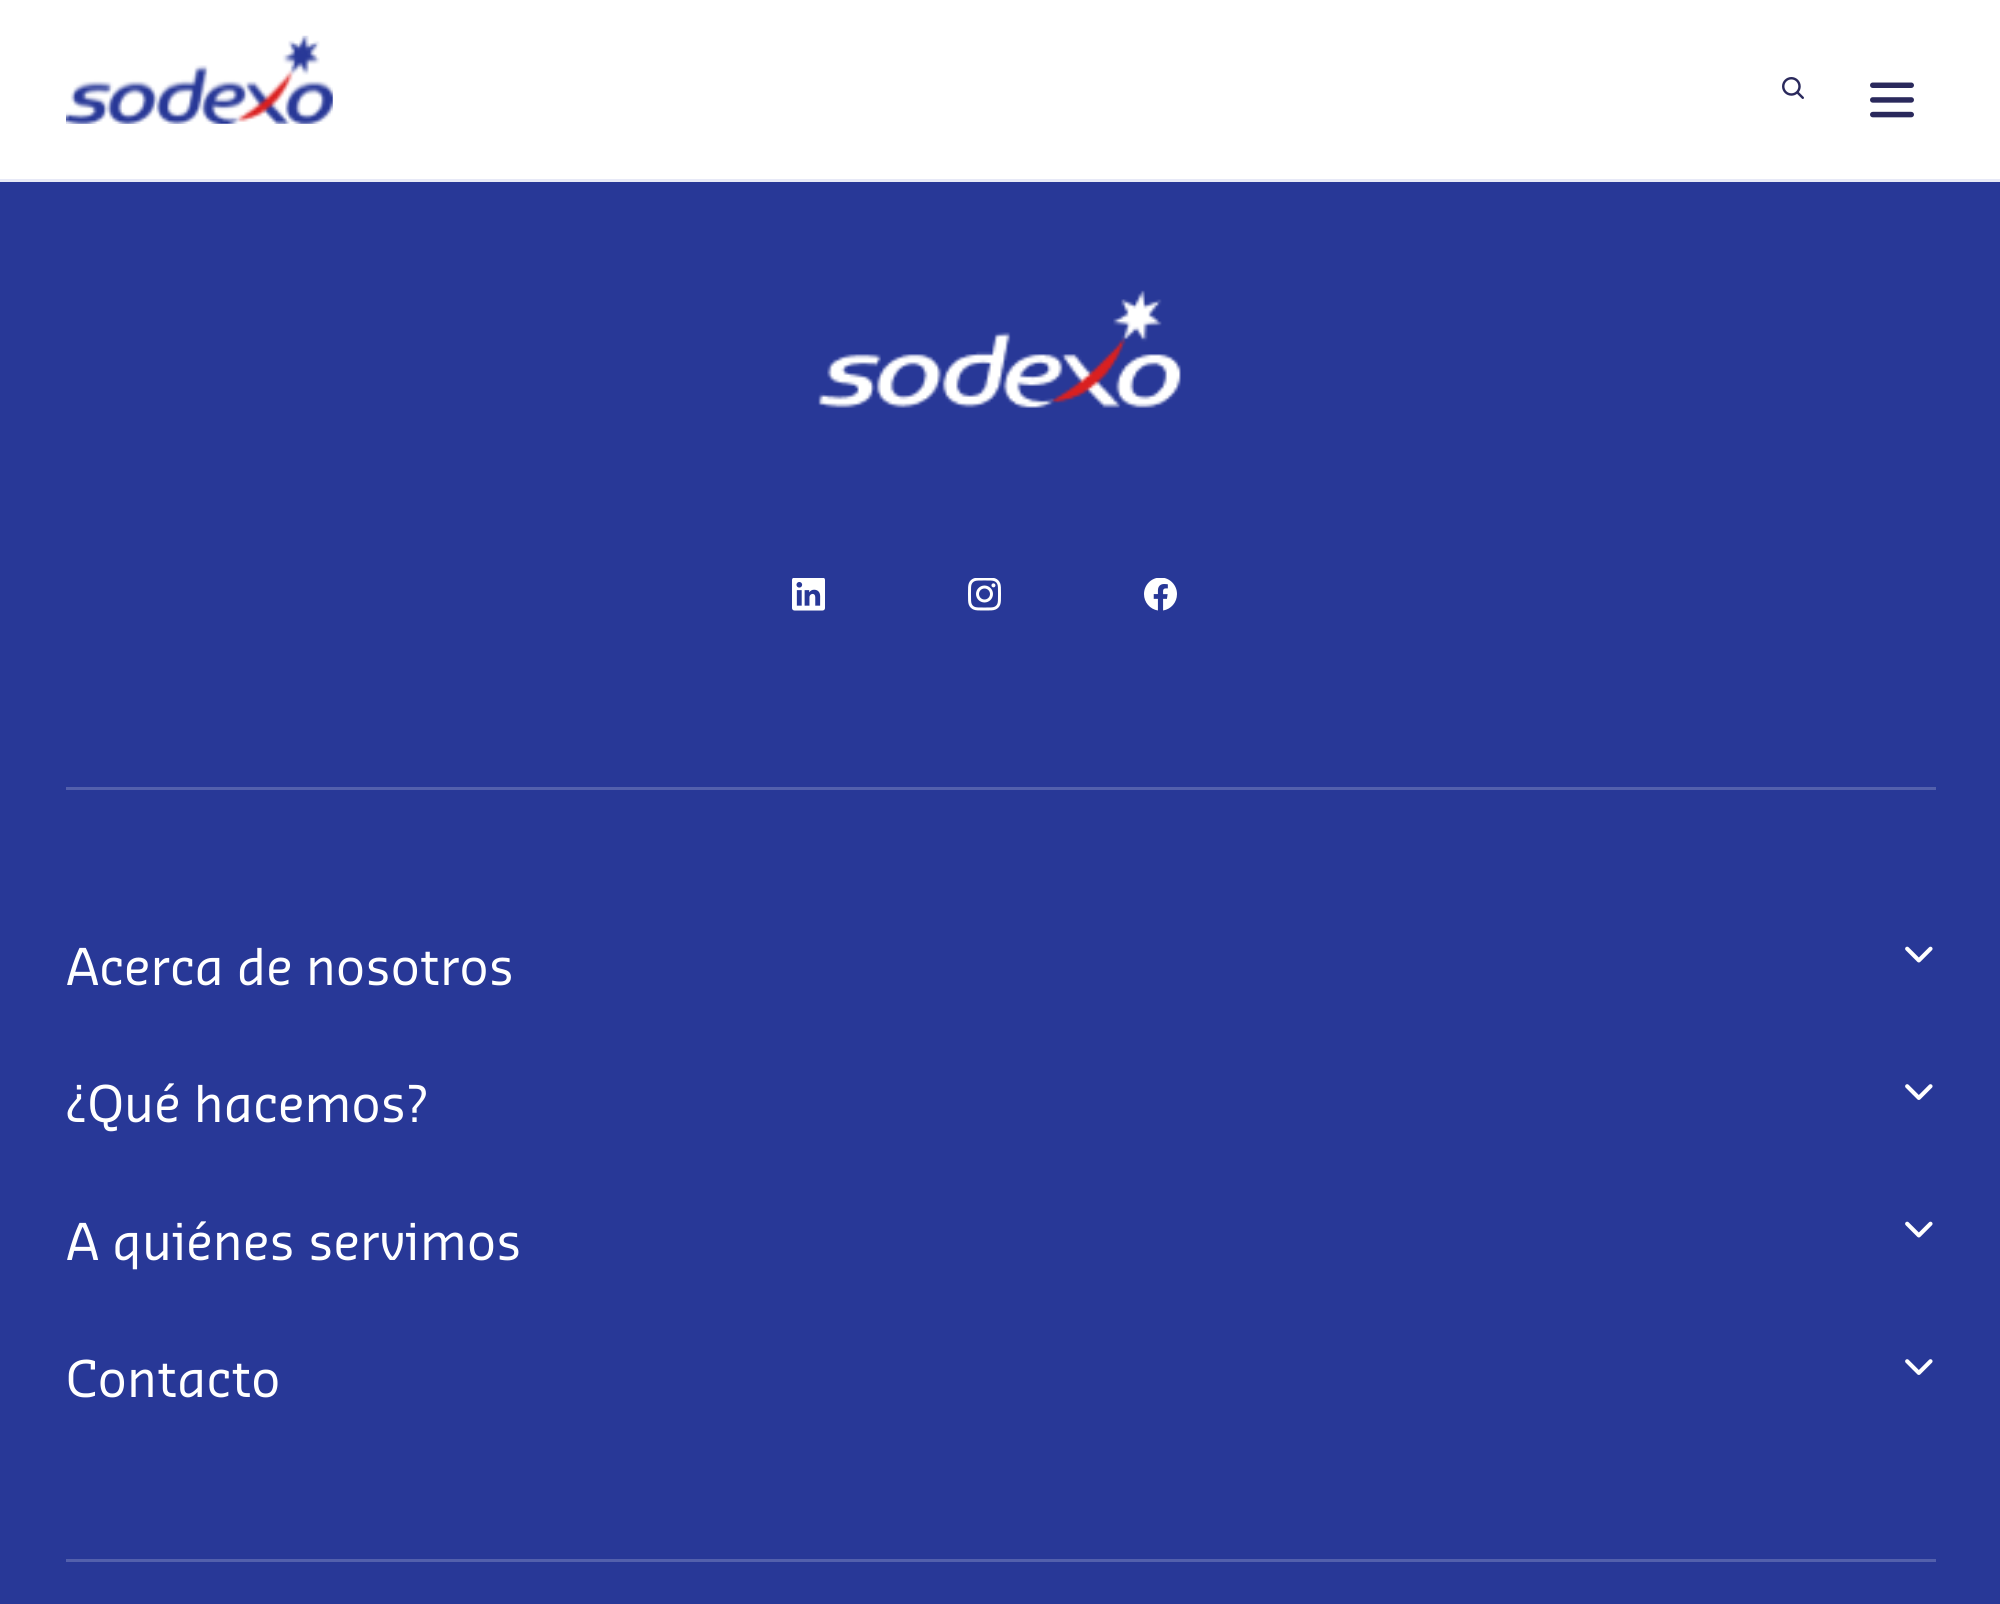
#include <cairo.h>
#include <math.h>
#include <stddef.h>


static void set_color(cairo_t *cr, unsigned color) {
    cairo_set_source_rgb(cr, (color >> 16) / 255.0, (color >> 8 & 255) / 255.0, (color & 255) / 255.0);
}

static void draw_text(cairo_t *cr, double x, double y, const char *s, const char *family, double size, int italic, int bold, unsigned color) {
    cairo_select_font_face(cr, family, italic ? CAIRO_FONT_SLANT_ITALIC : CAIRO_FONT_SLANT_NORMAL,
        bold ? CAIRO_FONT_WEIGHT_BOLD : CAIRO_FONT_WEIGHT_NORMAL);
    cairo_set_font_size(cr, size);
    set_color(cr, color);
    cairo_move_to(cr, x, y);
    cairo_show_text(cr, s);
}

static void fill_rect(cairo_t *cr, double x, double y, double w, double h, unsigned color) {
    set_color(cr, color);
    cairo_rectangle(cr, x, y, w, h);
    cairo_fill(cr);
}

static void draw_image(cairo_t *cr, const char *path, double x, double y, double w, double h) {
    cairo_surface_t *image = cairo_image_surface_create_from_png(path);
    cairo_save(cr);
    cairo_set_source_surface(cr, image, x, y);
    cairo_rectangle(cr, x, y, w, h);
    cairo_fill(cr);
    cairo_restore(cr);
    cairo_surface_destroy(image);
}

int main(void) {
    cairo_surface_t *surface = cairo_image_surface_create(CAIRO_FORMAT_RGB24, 2000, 1604);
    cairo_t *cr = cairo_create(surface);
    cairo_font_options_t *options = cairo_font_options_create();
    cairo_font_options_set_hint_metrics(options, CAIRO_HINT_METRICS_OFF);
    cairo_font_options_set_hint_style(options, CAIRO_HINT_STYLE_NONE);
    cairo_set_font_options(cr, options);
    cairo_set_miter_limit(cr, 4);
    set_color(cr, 0x283897);
    cairo_paint(cr);
    fill_rect(cr, 0, 0, 2000, 179, 0xFFFFFF);
    fill_rect(cr, 0, 179, 2000, 3, 0xE7E9F7);
    draw_image(cr, "assets/img1.png", 66, 35, 267, 89);
    draw_image(cr, "assets/img2.png", 1782, 77, 22, 22);
    draw_image(cr, "assets/img3.png", 1870, 82, 44, 36);
    draw_image(cr, "assets/img4.png", 818, 290, 363, 118);
    draw_image(cr, "assets/img5.png", 792, 578, 33, 33);
    draw_image(cr, "assets/img6.png", 968, 578, 33, 33);
    draw_image(cr, "assets/img7.png", 1144, 578, 33, 33);
    fill_rect(cr, 66, 787, 1870, 3, 0x5360AC);
    fill_rect(cr, 66, 1559, 1870, 3, 0x5360AC);
    draw_text(cr, 66, 985, "Acerca de nosotros", "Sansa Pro", 49.5, 0, 0, 0xFFFFFF);
    draw_image(cr, "assets/img8.png", 1905, 946, 28, 17);
    draw_text(cr, 66, 1122, "¿Qué hacemos?", "Sansa Pro", 49.5, 0, 0, 0xFFFFFF);
    draw_image(cr, "assets/img9.png", 1905, 1084, 28, 16);
    draw_text(cr, 66, 1260, "A quiénes servimos", "Sansa Pro", 49.5, 0, 0, 0xFFFFFF);
    draw_image(cr, "assets/img8.png", 1905, 1221, 28, 17);
    draw_text(cr, 66, 1397, "Contacto", "Sansa Pro", 49.5, 0, 0, 0xFFFFFF);
    draw_image(cr, "assets/img9.png", 1905, 1359, 28, 16);
    cairo_surface_write_to_png(surface, "output.png");
    cairo_font_options_destroy(options);
    cairo_destroy(cr);
    cairo_surface_destroy(surface);
    return 0;
}
